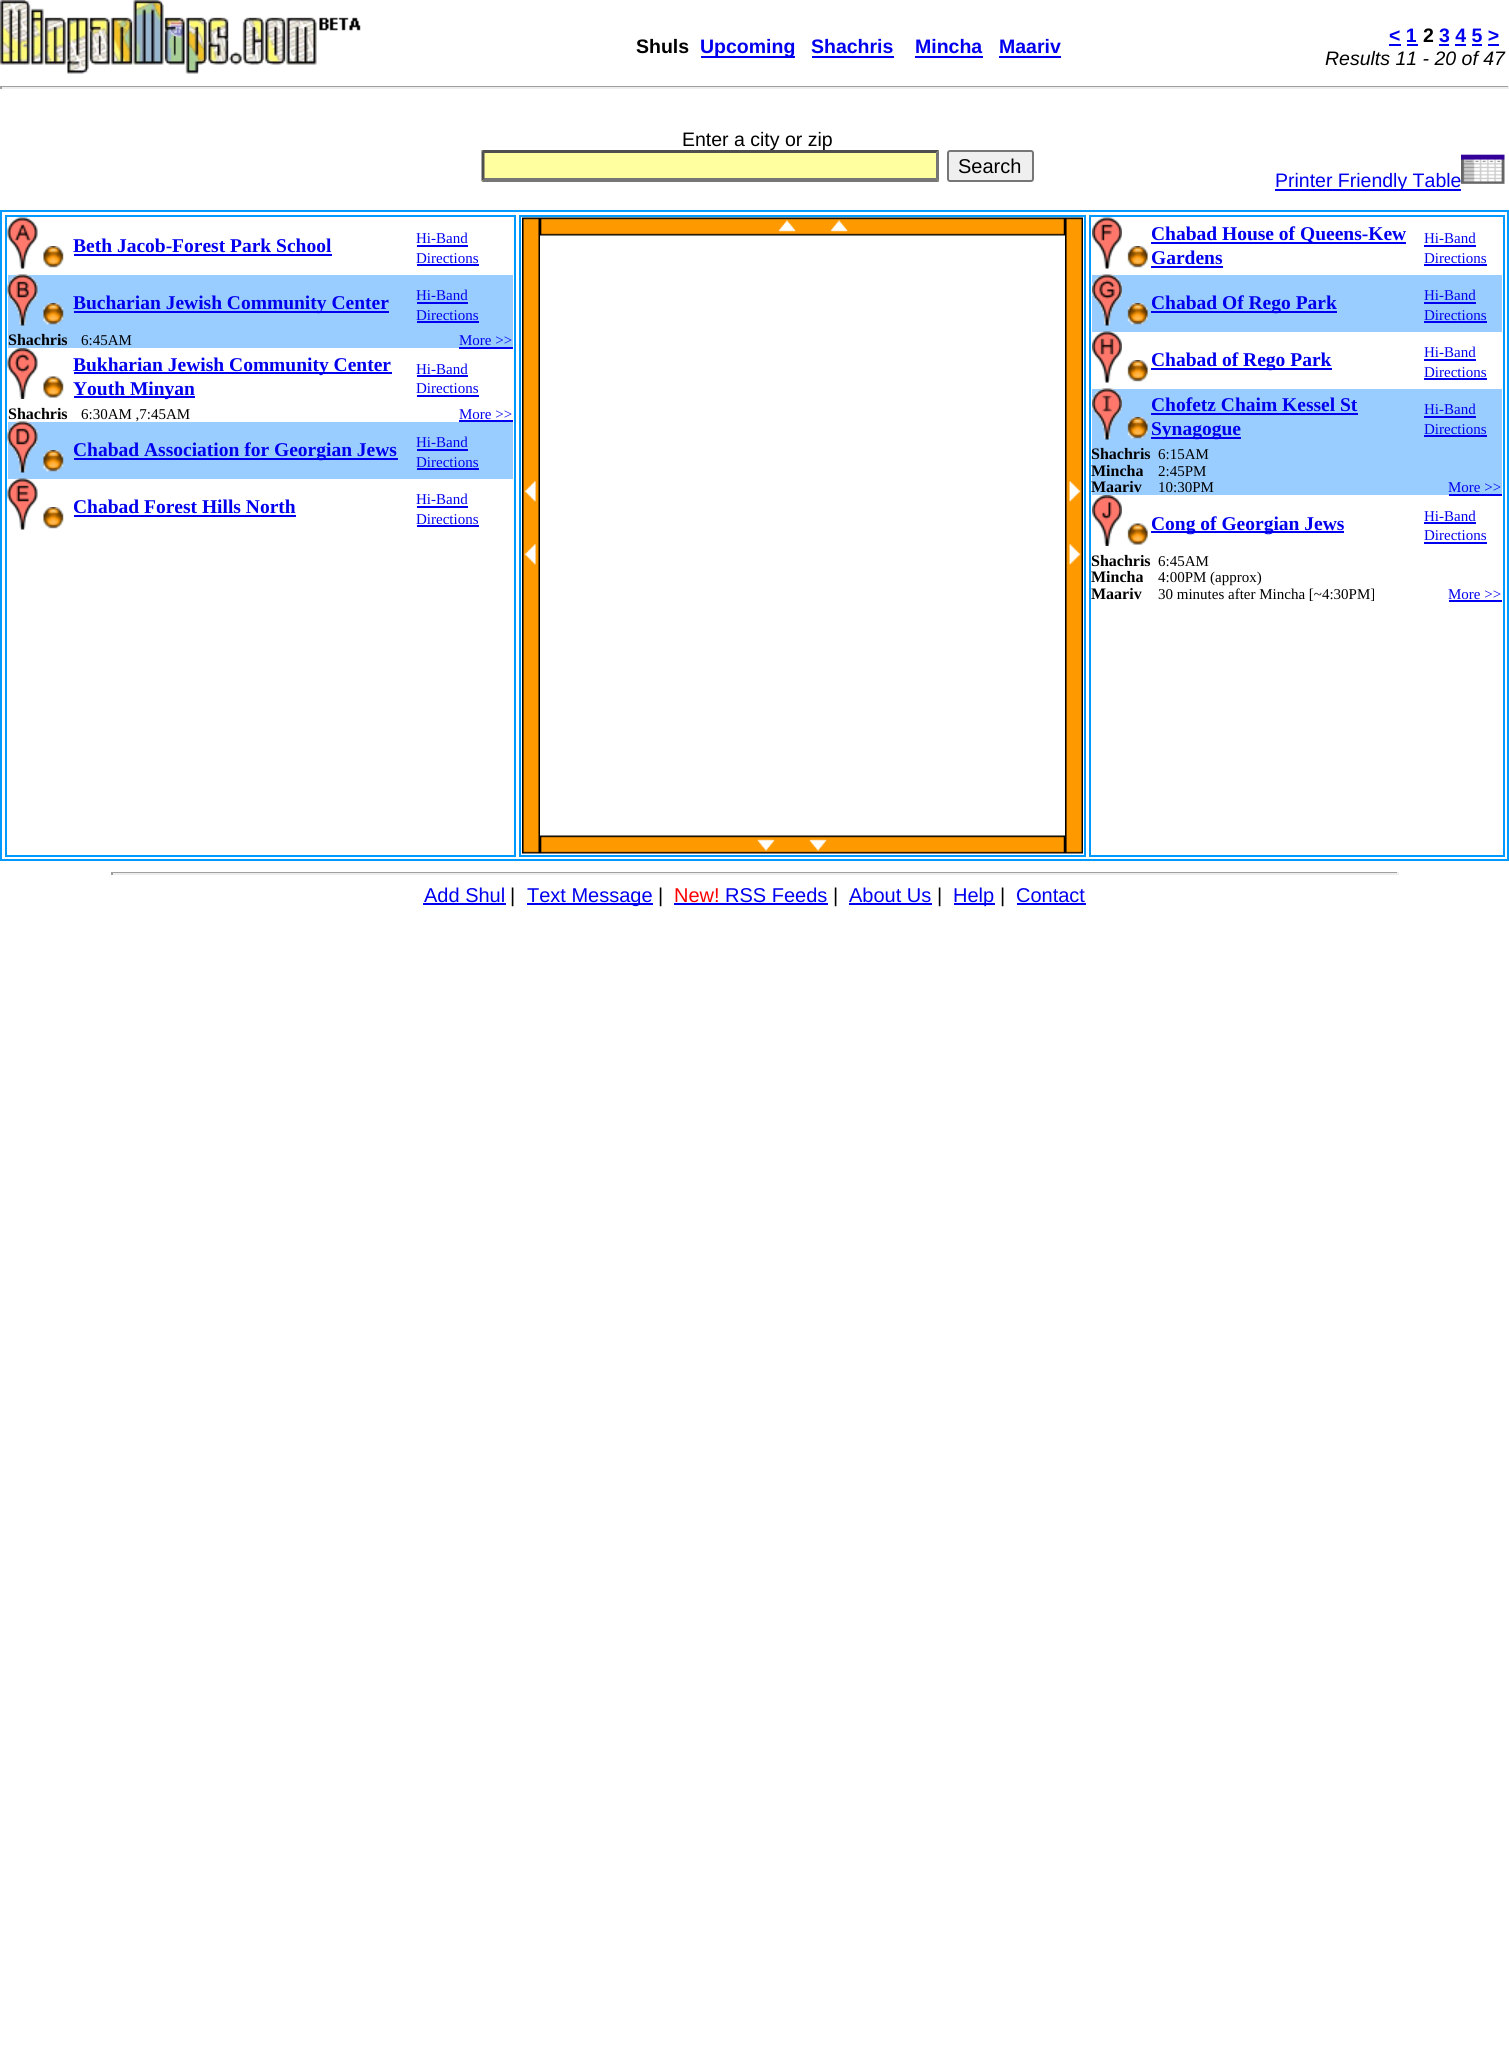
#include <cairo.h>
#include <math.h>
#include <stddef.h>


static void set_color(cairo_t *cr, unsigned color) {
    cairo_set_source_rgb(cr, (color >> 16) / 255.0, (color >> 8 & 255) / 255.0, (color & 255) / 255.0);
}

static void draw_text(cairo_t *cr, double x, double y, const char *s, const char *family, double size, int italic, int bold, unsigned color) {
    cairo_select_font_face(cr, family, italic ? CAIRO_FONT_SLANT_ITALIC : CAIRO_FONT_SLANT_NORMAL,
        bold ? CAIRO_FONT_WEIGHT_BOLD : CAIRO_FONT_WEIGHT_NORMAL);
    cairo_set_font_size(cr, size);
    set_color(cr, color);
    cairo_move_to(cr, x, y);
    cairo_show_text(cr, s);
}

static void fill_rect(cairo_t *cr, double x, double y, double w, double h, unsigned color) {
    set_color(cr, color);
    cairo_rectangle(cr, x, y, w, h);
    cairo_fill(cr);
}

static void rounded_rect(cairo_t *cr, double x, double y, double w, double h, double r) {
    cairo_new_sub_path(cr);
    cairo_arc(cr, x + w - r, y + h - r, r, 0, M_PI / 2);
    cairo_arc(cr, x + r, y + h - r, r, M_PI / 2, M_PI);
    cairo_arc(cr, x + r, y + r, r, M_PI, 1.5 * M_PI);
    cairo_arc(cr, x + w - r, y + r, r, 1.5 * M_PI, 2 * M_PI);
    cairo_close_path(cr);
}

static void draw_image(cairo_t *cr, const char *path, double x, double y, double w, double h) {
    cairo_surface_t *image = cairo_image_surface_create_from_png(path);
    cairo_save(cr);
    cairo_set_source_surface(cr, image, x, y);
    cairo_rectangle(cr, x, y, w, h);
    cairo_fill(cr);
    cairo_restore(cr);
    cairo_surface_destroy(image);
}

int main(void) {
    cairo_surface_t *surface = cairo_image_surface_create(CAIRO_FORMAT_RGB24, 1509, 2065);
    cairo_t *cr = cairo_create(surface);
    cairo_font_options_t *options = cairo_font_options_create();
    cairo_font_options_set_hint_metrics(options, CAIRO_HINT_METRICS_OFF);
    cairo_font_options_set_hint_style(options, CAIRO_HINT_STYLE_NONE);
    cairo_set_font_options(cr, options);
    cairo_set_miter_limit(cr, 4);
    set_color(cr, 0xFFFFFF);
    cairo_paint(cr);
    draw_image(cr, "assets/img1.png", 0, 0, 361, 74);
    draw_text(cr, 636, 53, "Shuls", "Liberation Sans", 19.5, 0, 1, 0x000000);
    fill_rect(cr, 701, 56, 94, 2, 0x0000EE);
    draw_text(cr, 700, 53, "Upcoming", "Liberation Sans", 19.5, 0, 1, 0x0000EE);
    draw_text(cr, 811, 53, "Shachris", "Liberation Sans", 19.5, 0, 1, 0x0000EE);
    fill_rect(cr, 812, 56, 82, 2, 0x0000EE);
    draw_text(cr, 915, 53, "Mincha", "Liberation Sans", 19.5, 0, 1, 0x0000EE);
    fill_rect(cr, 915, 56, 68, 2, 0x0000EE);
    draw_text(cr, 999, 53, "Maariv", "Liberation Sans", 19.5, 0, 1, 0x0000EE);
    fill_rect(cr, 999, 56, 62, 2, 0x0000EE);
    draw_text(cr, 1389, 42, "< 1", "Liberation Sans", 19.5, 0, 1, 0x0000EE);
    fill_rect(cr, 1389, 44, 12, 2, 0x0000EE);
    fill_rect(cr, 1407, 44, 11, 2, 0x0000EE);
    draw_text(cr, 1423, 42, "2", "Liberation Sans", 19.5, 0, 1, 0x000000);
    draw_text(cr, 1439, 42, "3 4 5 >", "Liberation Sans", 19.5, 0, 1, 0x0000EE);
    fill_rect(cr, 1439, 44, 10, 2, 0x0000EE);
    fill_rect(cr, 1455, 44, 11, 2, 0x0000EE);
    fill_rect(cr, 1472, 44, 10, 2, 0x0000EE);
    fill_rect(cr, 1488, 44, 11, 2, 0x0000EE);
    draw_text(cr, 1325, 65, "Results 11 - 20 of 47", "Liberation Sans", 19.5, 1, 0, 0x000000);
    fill_rect(cr, 0, 86, 1509, 1, 0x9F9F9F);
    fill_rect(cr, 1508, 86, 1, 3, 0xEEEEEE);
    fill_rect(cr, 0, 87, 1509, 2, 0xEEEEEE);
    fill_rect(cr, 0, 86, 2, 3, 0x9F9F9F);
    draw_text(cr, 682, 146, "Enter a city or zip", "Liberation Sans", 19.5, 0, 0, 0x000000);
    fill_rect(cr, 482, 150, 457, 32, 0xFFFFA0);
    set_color(cr, 0x4F4F4F);
    cairo_new_path(cr);
    cairo_move_to(cr, 482, 150);
    cairo_line_to(cr, 939, 150);
    cairo_line_to(cr, 936, 153);
    cairo_line_to(cr, 484, 153);
    cairo_close_path(cr);
    cairo_fill(cr);
    set_color(cr, 0x767676);
    cairo_new_path(cr);
    cairo_move_to(cr, 939, 150);
    cairo_line_to(cr, 939, 181.5);
    cairo_line_to(cr, 936, 178.5);
    cairo_line_to(cr, 936, 153);
    cairo_close_path(cr);
    cairo_fill(cr);
    cairo_new_path(cr);
    cairo_move_to(cr, 939, 182);
    cairo_line_to(cr, 482, 182);
    cairo_line_to(cr, 484, 178);
    cairo_line_to(cr, 936, 178);
    cairo_close_path(cr);
    cairo_fill(cr);
    set_color(cr, 0x4F4F4F);
    cairo_new_path(cr);
    cairo_move_to(cr, 481.5, 181.5);
    cairo_line_to(cr, 481.5, 150);
    cairo_line_to(cr, 484.5, 153);
    cairo_line_to(cr, 484.5, 178.5);
    cairo_close_path(cr);
    cairo_fill(cr);
    set_color(cr, 0xEFEFEF);
    rounded_rect(cr, 948, 151, 85, 30, 2);
    cairo_fill_preserve(cr);
    set_color(cr, 0x767676);
    cairo_stroke(cr);
    draw_text(cr, 958, 173, "Search", "Liberation Sans", 20, 0, 0, 0x000000);
    fill_rect(cr, 1275, 189, 186, 2, 0x0000EE);
    draw_text(cr, 1275, 187, "Printer Friendly Table", "Liberation Sans", 19.5, 0, 0, 0x0000EE);
    draw_image(cr, "assets/img2.png", 1461, 154, 44, 30);
    cairo_rectangle(cr, 1, 211, 1507, 649);
    set_color(cr, 0x0099FF);
    cairo_stroke(cr);
    cairo_rectangle(cr, 6, 216, 509, 640);
    cairo_stroke(cr);
    draw_image(cr, "assets/img3.png", 7, 217, 31, 52);
    draw_image(cr, "assets/img4.png", 43, 246, 21, 22);
    draw_text(cr, 73, 252, "Beth Jacob-Forest Park School", "Liberation Serif", 19.5, 0, 1, 0x0000EE);
    fill_rect(cr, 74, 254, 258, 2, 0x0000EE);
    draw_text(cr, 416, 243, "Hi-Band", "Liberation Serif", 15, 0, 0, 0x0000EE);
    fill_rect(cr, 417, 245, 51, 2, 0x0000EE);
    draw_text(cr, 416, 263, "Directions", "Liberation Serif", 15, 0, 0, 0x0000EE);
    fill_rect(cr, 417, 264, 62, 2, 0x0000EE);
    fill_rect(cr, 8, 275, 505, 73, 0x99CCFF);
    draw_image(cr, "assets/img5.png", 7, 274, 31, 52);
    draw_image(cr, "assets/img6.png", 43, 303, 21, 22);
    fill_rect(cr, 74, 311, 315, 2, 0x0000EE);
    draw_text(cr, 73, 309, "Bucharian Jewish Community Center", "Liberation Serif", 19.5, 0, 1, 0x0000EE);
    draw_text(cr, 416, 300, "Hi-Band", "Liberation Serif", 15, 0, 0, 0x0000EE);
    fill_rect(cr, 417, 302, 51, 2, 0x0000EE);
    draw_text(cr, 416, 320, "Directions", "Liberation Serif", 15, 0, 0, 0x0000EE);
    fill_rect(cr, 417, 321, 62, 2, 0x0000EE);
    draw_text(cr, 8, 345, "Shachris", "Liberation Serif", 16, 0, 1, 0x000000);
    draw_text(cr, 81, 345, "6:45AM", "Liberation Serif", 15, 0, 0, 0x000000);
    draw_text(cr, 459, 345, "More >>", "Liberation Serif", 15, 0, 0, 0x0000EE);
    fill_rect(cr, 459, 347, 54, 2, 0x0000EE);
    draw_image(cr, "assets/img7.png", 7, 348, 31, 51);
    draw_image(cr, "assets/img8.png", 43, 376, 21, 22);
    fill_rect(cr, 74, 372, 318, 2, 0x0000EE);
    draw_text(cr, 73, 371, "Bukharian Jewish Community Center", "Liberation Serif", 19.5, 0, 1, 0x0000EE);
    fill_rect(cr, 74, 396, 121, 2, 0x0000EE);
    draw_text(cr, 73, 395, "Youth Minyan", "Liberation Serif", 19.5, 0, 1, 0x0000EE);
    draw_text(cr, 416, 374, "Hi-Band", "Liberation Serif", 15, 0, 0, 0x0000EE);
    fill_rect(cr, 417, 375, 51, 2, 0x0000EE);
    draw_text(cr, 416, 393, "Directions", "Liberation Serif", 15, 0, 0, 0x0000EE);
    fill_rect(cr, 417, 395, 62, 2, 0x0000EE);
    draw_text(cr, 8, 419, "Shachris", "Liberation Serif", 16, 0, 1, 0x000000);
    draw_text(cr, 81, 419, "6:30AM ,7:45AM", "Liberation Serif", 15, 0, 0, 0x000000);
    draw_text(cr, 459, 419, "More >>", "Liberation Serif", 15, 0, 0, 0x0000EE);
    fill_rect(cr, 459, 420, 54, 2, 0x0000EE);
    fill_rect(cr, 8, 422, 505, 57, 0x99CCFF);
    draw_image(cr, "assets/img9.png", 7, 421, 31, 52);
    draw_image(cr, "assets/img6.png", 43, 450, 21, 22);
    fill_rect(cr, 74, 458, 324, 2, 0x0000EE);
    draw_text(cr, 73, 456, "Chabad Association for Georgian Jews", "Liberation Serif", 19.5, 0, 1, 0x0000EE);
    draw_text(cr, 416, 447, "Hi-Band", "Liberation Serif", 15, 0, 0, 0x0000EE);
    fill_rect(cr, 417, 449, 51, 2, 0x0000EE);
    draw_text(cr, 416, 467, "Directions", "Liberation Serif", 15, 0, 0, 0x0000EE);
    fill_rect(cr, 417, 468, 62, 2, 0x0000EE);
    draw_image(cr, "assets/img10.png", 7, 478, 31, 52);
    draw_image(cr, "assets/img4.png", 43, 507, 21, 22);
    draw_text(cr, 73, 513, "Chabad Forest Hills North", "Liberation Serif", 19.5, 0, 1, 0x0000EE);
    fill_rect(cr, 74, 515, 222, 2, 0x0000EE);
    draw_text(cr, 416, 504, "Hi-Band", "Liberation Serif", 15, 0, 0, 0x0000EE);
    fill_rect(cr, 417, 506, 51, 2, 0x0000EE);
    draw_text(cr, 416, 524, "Directions", "Liberation Serif", 15, 0, 0, 0x0000EE);
    fill_rect(cr, 417, 525, 62, 2, 0x0000EE);
    cairo_rectangle(cr, 520, 216, 565, 640);
    set_color(cr, 0x0099FF);
    cairo_stroke(cr);
    draw_image(cr, "assets/img11.png", 522, 217, 18, 637);
    draw_image(cr, "assets/img12.png", 540, 217, 525, 19);
    draw_image(cr, "assets/img13.png", 1065, 217, 18, 637);
    draw_image(cr, "assets/img14.png", 540, 835, 525, 19);
    cairo_rectangle(cr, 1090, 216, 414, 640);
    cairo_stroke(cr);
    draw_image(cr, "assets/img15.png", 1092, 217, 30, 52);
    draw_image(cr, "assets/img16.png", 1127, 246, 21, 22);
    fill_rect(cr, 1151, 242, 255, 2, 0x0000EE);
    draw_text(cr, 1151, 240, "Chabad House of Queens-Kew", "Liberation Serif", 19.5, 0, 1, 0x0000EE);
    draw_text(cr, 1151, 264, "Gardens", "Liberation Serif", 19.5, 0, 1, 0x0000EE);
    fill_rect(cr, 1151, 266, 72, 2, 0x0000EE);
    draw_text(cr, 1424, 243, "Hi-Band", "Liberation Serif", 15, 0, 0, 0x0000EE);
    fill_rect(cr, 1424, 245, 52, 2, 0x0000EE);
    draw_text(cr, 1424, 263, "Directions", "Liberation Serif", 15, 0, 0, 0x0000EE);
    fill_rect(cr, 1424, 264, 63, 2, 0x0000EE);
    fill_rect(cr, 1092, 275, 410, 57, 0x99CCFF);
    draw_image(cr, "assets/img17.png", 1092, 274, 30, 52);
    draw_image(cr, "assets/img18.png", 1127, 303, 21, 22);
    fill_rect(cr, 1151, 311, 186, 2, 0x0000EE);
    draw_text(cr, 1151, 309, "Chabad Of Rego Park", "Liberation Serif", 19.5, 0, 1, 0x0000EE);
    draw_text(cr, 1424, 300, "Hi-Band", "Liberation Serif", 15, 0, 0, 0x0000EE);
    fill_rect(cr, 1424, 302, 52, 2, 0x0000EE);
    draw_text(cr, 1424, 320, "Directions", "Liberation Serif", 15, 0, 0, 0x0000EE);
    fill_rect(cr, 1424, 321, 63, 2, 0x0000EE);
    draw_image(cr, "assets/img19.png", 1092, 331, 30, 52);
    draw_image(cr, "assets/img16.png", 1127, 360, 21, 22);
    fill_rect(cr, 1151, 368, 181, 2, 0x0000EE);
    draw_text(cr, 1151, 366, "Chabad of Rego Park", "Liberation Serif", 19.5, 0, 1, 0x0000EE);
    draw_text(cr, 1424, 357, "Hi-Band", "Liberation Serif", 15, 0, 0, 0x0000EE);
    fill_rect(cr, 1424, 359, 52, 2, 0x0000EE);
    draw_text(cr, 1424, 377, "Directions", "Liberation Serif", 15, 0, 0, 0x0000EE);
    fill_rect(cr, 1424, 378, 63, 2, 0x0000EE);
    fill_rect(cr, 1092, 389, 410, 106, 0x99CCFF);
    draw_image(cr, "assets/img20.png", 1092, 388, 30, 52);
    draw_image(cr, "assets/img18.png", 1127, 417, 21, 22);
    draw_text(cr, 1151, 411, "Chofetz Chaim Kessel St", "Liberation Serif", 19.5, 0, 1, 0x0000EE);
    fill_rect(cr, 1151, 413, 207, 2, 0x0000EE);
    fill_rect(cr, 1151, 437, 90, 2, 0x0000EE);
    draw_text(cr, 1151, 435, "Synagogue", "Liberation Serif", 19.5, 0, 1, 0x0000EE);
    draw_text(cr, 1424, 414, "Hi-Band", "Liberation Serif", 15, 0, 0, 0x0000EE);
    fill_rect(cr, 1424, 416, 52, 2, 0x0000EE);
    draw_text(cr, 1424, 434, "Directions", "Liberation Serif", 15, 0, 0, 0x0000EE);
    fill_rect(cr, 1424, 435, 63, 2, 0x0000EE);
    draw_text(cr, 1091, 459, "Shachris", "Liberation Serif", 16, 0, 1, 0x000000);
    draw_text(cr, 1158, 459, "6:15AM", "Liberation Serif", 15, 0, 0, 0x000000);
    draw_text(cr, 1091, 476, "Mincha", "Liberation Serif", 16, 0, 1, 0x000000);
    draw_text(cr, 1158, 476, "2:45PM", "Liberation Serif", 15, 0, 0, 0x000000);
    draw_text(cr, 1091, 492, "Maariv", "Liberation Serif", 16, 0, 1, 0x000000);
    draw_text(cr, 1158, 492, "10:30PM", "Liberation Serif", 15, 0, 0, 0x000000);
    draw_text(cr, 1448, 492, "More >>", "Liberation Serif", 15, 0, 0, 0x0000EE);
    fill_rect(cr, 1449, 494, 53, 2, 0x0000EE);
    draw_image(cr, "assets/img21.png", 1092, 495, 30, 51);
    draw_image(cr, "assets/img22.png", 1127, 523, 21, 22);
    fill_rect(cr, 1151, 531, 193, 2, 0x0000EE);
    draw_text(cr, 1151, 530, "Cong of Georgian Jews", "Liberation Serif", 19.5, 0, 1, 0x0000EE);
    draw_text(cr, 1424, 521, "Hi-Band", "Liberation Serif", 15, 0, 0, 0x0000EE);
    fill_rect(cr, 1424, 522, 52, 2, 0x0000EE);
    draw_text(cr, 1424, 540, "Directions", "Liberation Serif", 15, 0, 0, 0x0000EE);
    fill_rect(cr, 1424, 542, 63, 2, 0x0000EE);
    draw_text(cr, 1091, 566, "Shachris", "Liberation Serif", 16, 0, 1, 0x000000);
    draw_text(cr, 1158, 566, "6:45AM", "Liberation Serif", 15, 0, 0, 0x000000);
    draw_text(cr, 1091, 582, "Mincha", "Liberation Serif", 16, 0, 1, 0x000000);
    draw_text(cr, 1158, 582, "4:00PM (approx)", "Liberation Serif", 15, 0, 0, 0x000000);
    draw_text(cr, 1091, 599, "Maariv", "Liberation Serif", 16, 0, 1, 0x000000);
    draw_text(cr, 1158, 599, "30 minutes after Mincha [~4:30PM]", "Liberation Serif", 15, 0, 0, 0x000000);
    draw_text(cr, 1448, 599, "More >>", "Liberation Serif", 15, 0, 0, 0x0000EE);
    fill_rect(cr, 1449, 600, 53, 2, 0x0000EE);
    fill_rect(cr, 111, 872, 1287, 1, 0x9F9F9F);
    fill_rect(cr, 1397, 872, 2, 3, 0xEEEEEE);
    fill_rect(cr, 111, 873, 1287, 2, 0xEEEEEE);
    fill_rect(cr, 111, 872, 2, 3, 0x9F9F9F);
    draw_text(cr, 424, 902, "Add Shul", "Liberation Sans", 20, 0, 0, 0x0000EE);
    fill_rect(cr, 423, 903, 83, 2, 0x0000EE);
    draw_text(cr, 510, 902, "|", "Liberation Sans", 20, 0, 0, 0x000000);
    fill_rect(cr, 527, 903, 126, 2, 0x0000EE);
    draw_text(cr, 527, 902, "Text Message", "Liberation Sans", 20, 0, 0, 0x0000EE);
    draw_text(cr, 658, 902, "|", "Liberation Sans", 20, 0, 0, 0x000000);
    draw_text(cr, 674, 902, "New!", "Liberation Sans", 20, 0, 0, 0xFF0000);
    fill_rect(cr, 674, 903, 154, 2, 0x0000EE);
    draw_text(cr, 725, 902, "RSS Feeds", "Liberation Sans", 20, 0, 0, 0x0000EE);
    draw_text(cr, 833, 902, "|", "Liberation Sans", 20, 0, 0, 0x000000);
    draw_text(cr, 849, 902, "About Us", "Liberation Sans", 20, 0, 0, 0x0000EE);
    fill_rect(cr, 849, 903, 83, 2, 0x0000EE);
    draw_text(cr, 937, 902, "|", "Liberation Sans", 20, 0, 0, 0x000000);
    fill_rect(cr, 954, 903, 41, 2, 0x0000EE);
    draw_text(cr, 953, 902, "Help", "Liberation Sans", 20, 0, 0, 0x0000EE);
    draw_text(cr, 1000, 902, "|", "Liberation Sans", 20, 0, 0, 0x000000);
    draw_text(cr, 1016, 902, "Contact", "Liberation Sans", 20, 0, 0, 0x0000EE);
    fill_rect(cr, 1017, 903, 69, 2, 0x0000EE);
    cairo_surface_write_to_png(surface, "output.png");
    cairo_font_options_destroy(options);
    cairo_destroy(cr);
    cairo_surface_destroy(surface);
    return 0;
}
